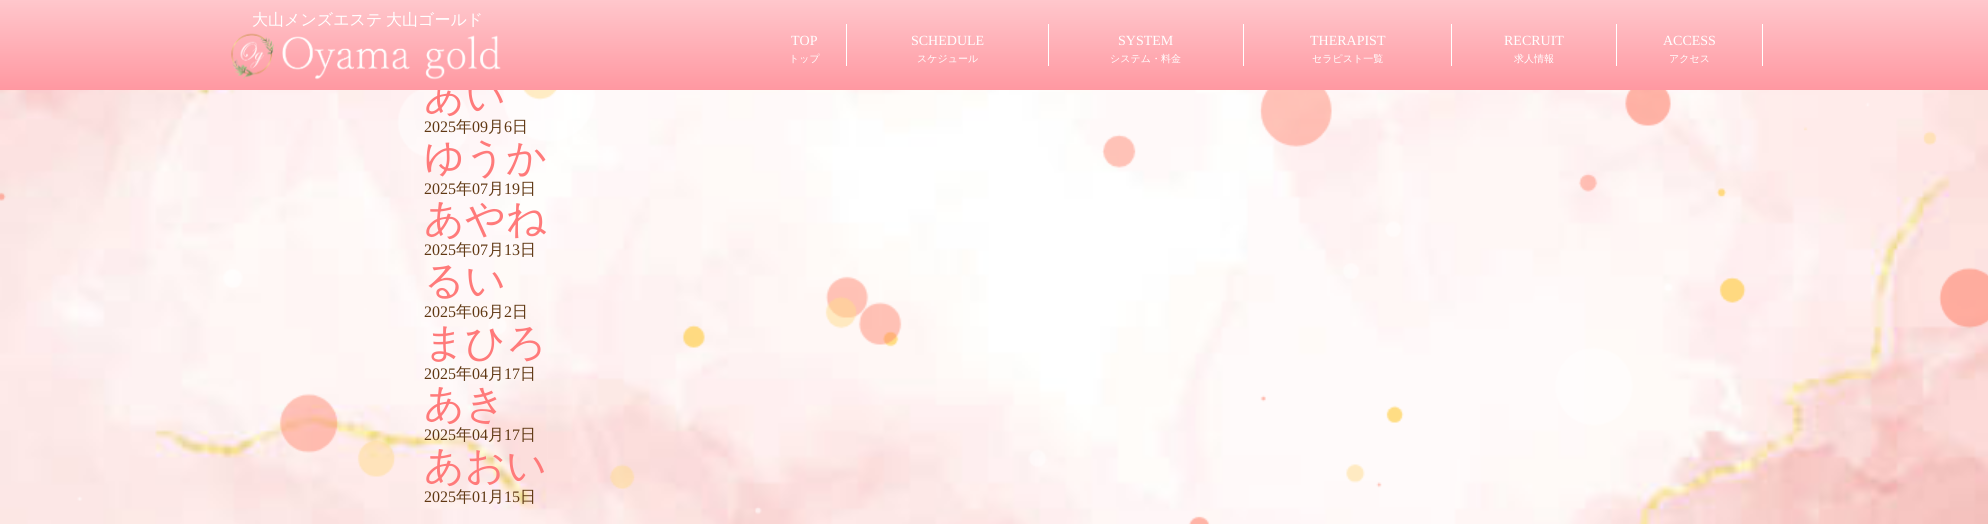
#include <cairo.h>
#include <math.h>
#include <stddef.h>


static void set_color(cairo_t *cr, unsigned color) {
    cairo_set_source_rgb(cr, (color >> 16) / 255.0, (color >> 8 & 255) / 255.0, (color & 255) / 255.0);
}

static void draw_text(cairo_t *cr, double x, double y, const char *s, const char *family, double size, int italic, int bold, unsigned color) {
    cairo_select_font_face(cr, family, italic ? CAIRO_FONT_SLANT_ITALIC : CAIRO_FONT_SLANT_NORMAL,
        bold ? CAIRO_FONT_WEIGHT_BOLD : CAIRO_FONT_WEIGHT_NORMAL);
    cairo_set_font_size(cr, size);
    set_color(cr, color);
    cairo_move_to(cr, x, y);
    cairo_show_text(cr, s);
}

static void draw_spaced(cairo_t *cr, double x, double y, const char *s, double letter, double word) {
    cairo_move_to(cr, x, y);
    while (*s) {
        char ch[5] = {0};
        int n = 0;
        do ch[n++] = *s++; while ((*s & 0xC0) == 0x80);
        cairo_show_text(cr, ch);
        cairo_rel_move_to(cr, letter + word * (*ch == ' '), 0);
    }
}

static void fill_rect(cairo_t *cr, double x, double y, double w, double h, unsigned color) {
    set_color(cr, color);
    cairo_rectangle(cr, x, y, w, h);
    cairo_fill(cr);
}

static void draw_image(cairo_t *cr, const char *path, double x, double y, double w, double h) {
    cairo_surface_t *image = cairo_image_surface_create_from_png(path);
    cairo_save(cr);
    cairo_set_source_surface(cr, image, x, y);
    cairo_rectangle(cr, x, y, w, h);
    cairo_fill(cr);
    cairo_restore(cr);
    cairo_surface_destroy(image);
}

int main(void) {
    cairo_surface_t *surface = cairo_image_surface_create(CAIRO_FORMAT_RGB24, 1988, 524);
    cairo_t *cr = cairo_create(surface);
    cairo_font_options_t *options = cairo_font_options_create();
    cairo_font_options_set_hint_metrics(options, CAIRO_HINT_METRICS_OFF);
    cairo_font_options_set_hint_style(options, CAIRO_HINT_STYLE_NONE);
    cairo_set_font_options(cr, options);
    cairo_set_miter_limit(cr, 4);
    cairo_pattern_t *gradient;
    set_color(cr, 0xFFFFFF);
    cairo_paint(cr);
    draw_image(cr, "assets/img2.png", 0, 90, 1988, 434);
    draw_image(cr, "assets/img3.png", 0, 90, 1988, 434);
    draw_text(cr, 424, 109, "あい", "WenQuanYi Zen Hei Medium", 40, 0, 0, 0xFF7A7A);
    gradient = cairo_pattern_create_linear(994, 0, 994, 90);
    cairo_pattern_add_color_stop_rgba(gradient, 0, 1, 0.78, 0.8, 1);
    cairo_pattern_add_color_stop_rgba(gradient, 1, 1, 0.596, 0.631, 1);
    cairo_set_source(cr, gradient);
    cairo_pattern_destroy(gradient);
    cairo_rectangle(cr, 0, 0, 1988, 90);
    cairo_fill(cr);
    cairo_set_font_size(cr, 16);
    set_color(cr, 0xFFFFFF);
    draw_spaced(cr, 252, 25, "大山メンズエステ 大山ゴールド", 0, -1);
    draw_image(cr, "assets/img1.png", 231, 33, 270, 47);
    fill_rect(cr, 846, 24, 1, 42, 0xFFFFFF);
    draw_text(cr, 791, 45, "TOP", "Liberation Serif", 14, 0, 0, 0xFFFFFF);
    draw_text(cr, 789, 62, "トップ", "WenQuanYi Zen Hei Medium", 10, 0, 0, 0xFFFFFF);
    fill_rect(cr, 1048, 24, 1, 42, 0xFFFFFF);
    draw_text(cr, 911, 45, "SCHEDULE", "Liberation Serif", 14, 0, 0, 0xFFFFFF);
    draw_text(cr, 917, 62, "スケジュール", "WenQuanYi Zen Hei Medium", 10, 0, 0, 0xFFFFFF);
    fill_rect(cr, 1243, 24, 1, 42, 0xFFFFFF);
    draw_text(cr, 1118, 45, "SYSTEM", "Liberation Serif", 14, 0, 0, 0xFFFFFF);
    draw_text(cr, 1110, 62, "システム・料金", "WenQuanYi Zen Hei Medium", 10, 0, 0, 0xFFFFFF);
    fill_rect(cr, 1451, 24, 1, 42, 0xFFFFFF);
    draw_text(cr, 1310, 45, "THERAPIST", "Liberation Serif", 14, 0, 0, 0xFFFFFF);
    draw_text(cr, 1312, 62, "セラピスト一覧", "WenQuanYi Zen Hei Medium", 10, 0, 0, 0xFFFFFF);
    fill_rect(cr, 1616, 24, 1, 42, 0xFFFFFF);
    draw_text(cr, 1504, 45, "RECRUIT", "Liberation Serif", 14, 0, 0, 0xFFFFFF);
    draw_text(cr, 1514, 62, "求人情報", "WenQuanYi Zen Hei Medium", 10, 0, 0, 0xFFFFFF);
    fill_rect(cr, 1762, 24, 1, 42, 0xFFFFFF);
    draw_text(cr, 1663, 45, "ACCESS", "Liberation Serif", 14, 0, 0, 0xFFFFFF);
    draw_text(cr, 1669, 62, "アクセス", "WenQuanYi Zen Hei Medium", 10, 0, 0, 0xFFFFFF);
    draw_text(cr, 424, 132, "2025", "Liberation Serif", 16, 0, 0, 0x603813);
    draw_text(cr, 456, 132, "年", "WenQuanYi Zen Hei Medium", 16, 0, 0, 0x603813);
    draw_text(cr, 472, 132, "09", "Liberation Serif", 16, 0, 0, 0x603813);
    draw_text(cr, 488, 132, "月", "WenQuanYi Zen Hei Medium", 16, 0, 0, 0x603813);
    draw_text(cr, 504, 132, "6", "Liberation Serif", 16, 0, 0, 0x603813);
    draw_text(cr, 512, 132, "日", "WenQuanYi Zen Hei Medium", 16, 0, 0, 0x603813);
    draw_text(cr, 424, 171, "ゆうか", "WenQuanYi Zen Hei Medium", 40, 0, 0, 0xFF7A7A);
    draw_text(cr, 424, 194, "2025", "Liberation Serif", 16, 0, 0, 0x603813);
    draw_text(cr, 456, 194, "年", "WenQuanYi Zen Hei Medium", 16, 0, 0, 0x603813);
    draw_text(cr, 472, 194, "07", "Liberation Serif", 16, 0, 0, 0x603813);
    draw_text(cr, 488, 194, "月", "WenQuanYi Zen Hei Medium", 16, 0, 0, 0x603813);
    draw_text(cr, 504, 194, "19", "Liberation Serif", 16, 0, 0, 0x603813);
    draw_text(cr, 520, 194, "日", "WenQuanYi Zen Hei Medium", 16, 0, 0, 0x603813);
    draw_text(cr, 424, 232, "あやね", "WenQuanYi Zen Hei Medium", 40, 0, 0, 0xFF7A7A);
    draw_text(cr, 424, 255, "2025", "Liberation Serif", 16, 0, 0, 0x603813);
    draw_text(cr, 456, 255, "年", "WenQuanYi Zen Hei Medium", 16, 0, 0, 0x603813);
    draw_text(cr, 472, 255, "07", "Liberation Serif", 16, 0, 0, 0x603813);
    draw_text(cr, 488, 255, "月", "WenQuanYi Zen Hei Medium", 16, 0, 0, 0x603813);
    draw_text(cr, 504, 255, "13", "Liberation Serif", 16, 0, 0, 0x603813);
    draw_text(cr, 520, 255, "日", "WenQuanYi Zen Hei Medium", 16, 0, 0, 0x603813);
    draw_text(cr, 424, 294, "るい", "WenQuanYi Zen Hei Medium", 40, 0, 0, 0xFF7A7A);
    draw_text(cr, 424, 317, "2025", "Liberation Serif", 16, 0, 0, 0x603813);
    draw_text(cr, 456, 317, "年", "WenQuanYi Zen Hei Medium", 16, 0, 0, 0x603813);
    draw_text(cr, 472, 317, "06", "Liberation Serif", 16, 0, 0, 0x603813);
    draw_text(cr, 488, 317, "月", "WenQuanYi Zen Hei Medium", 16, 0, 0, 0x603813);
    draw_text(cr, 504, 317, "2", "Liberation Serif", 16, 0, 0, 0x603813);
    draw_text(cr, 512, 317, "日", "WenQuanYi Zen Hei Medium", 16, 0, 0, 0x603813);
    draw_text(cr, 424, 356, "まひろ", "WenQuanYi Zen Hei Medium", 40, 0, 0, 0xFF7A7A);
    draw_text(cr, 424, 379, "2025", "Liberation Serif", 16, 0, 0, 0x603813);
    draw_text(cr, 456, 379, "年", "WenQuanYi Zen Hei Medium", 16, 0, 0, 0x603813);
    draw_text(cr, 472, 379, "04", "Liberation Serif", 16, 0, 0, 0x603813);
    draw_text(cr, 488, 379, "月", "WenQuanYi Zen Hei Medium", 16, 0, 0, 0x603813);
    draw_text(cr, 504, 379, "17", "Liberation Serif", 16, 0, 0, 0x603813);
    draw_text(cr, 520, 379, "日", "WenQuanYi Zen Hei Medium", 16, 0, 0, 0x603813);
    draw_text(cr, 424, 417, "あき", "WenQuanYi Zen Hei Medium", 40, 0, 0, 0xFF7A7A);
    draw_text(cr, 424, 440, "2025", "Liberation Serif", 16, 0, 0, 0x603813);
    draw_text(cr, 456, 440, "年", "WenQuanYi Zen Hei Medium", 16, 0, 0, 0x603813);
    draw_text(cr, 472, 440, "04", "Liberation Serif", 16, 0, 0, 0x603813);
    draw_text(cr, 488, 440, "月", "WenQuanYi Zen Hei Medium", 16, 0, 0, 0x603813);
    draw_text(cr, 504, 440, "17", "Liberation Serif", 16, 0, 0, 0x603813);
    draw_text(cr, 520, 440, "日", "WenQuanYi Zen Hei Medium", 16, 0, 0, 0x603813);
    draw_text(cr, 424, 479, "あおい", "WenQuanYi Zen Hei Medium", 40, 0, 0, 0xFF7A7A);
    draw_text(cr, 424, 502, "2025", "Liberation Serif", 16, 0, 0, 0x603813);
    draw_text(cr, 456, 502, "年", "WenQuanYi Zen Hei Medium", 16, 0, 0, 0x603813);
    draw_text(cr, 472, 502, "01", "Liberation Serif", 16, 0, 0, 0x603813);
    draw_text(cr, 488, 502, "月", "WenQuanYi Zen Hei Medium", 16, 0, 0, 0x603813);
    draw_text(cr, 504, 502, "15", "Liberation Serif", 16, 0, 0, 0x603813);
    draw_text(cr, 520, 502, "日", "WenQuanYi Zen Hei Medium", 16, 0, 0, 0x603813);
    cairo_surface_write_to_png(surface, "output.png");
    cairo_font_options_destroy(options);
    cairo_destroy(cr);
    cairo_surface_destroy(surface);
    return 0;
}
